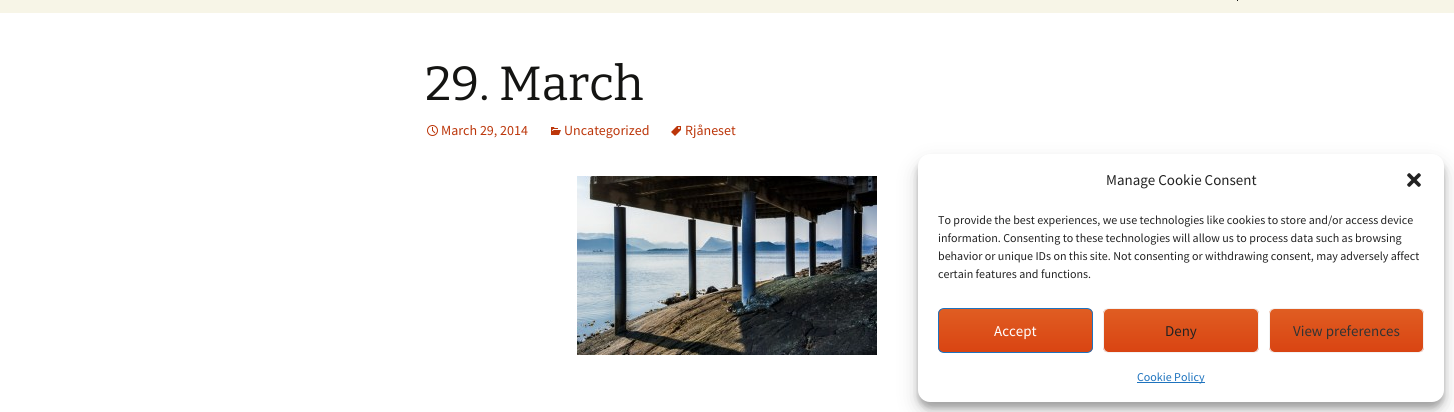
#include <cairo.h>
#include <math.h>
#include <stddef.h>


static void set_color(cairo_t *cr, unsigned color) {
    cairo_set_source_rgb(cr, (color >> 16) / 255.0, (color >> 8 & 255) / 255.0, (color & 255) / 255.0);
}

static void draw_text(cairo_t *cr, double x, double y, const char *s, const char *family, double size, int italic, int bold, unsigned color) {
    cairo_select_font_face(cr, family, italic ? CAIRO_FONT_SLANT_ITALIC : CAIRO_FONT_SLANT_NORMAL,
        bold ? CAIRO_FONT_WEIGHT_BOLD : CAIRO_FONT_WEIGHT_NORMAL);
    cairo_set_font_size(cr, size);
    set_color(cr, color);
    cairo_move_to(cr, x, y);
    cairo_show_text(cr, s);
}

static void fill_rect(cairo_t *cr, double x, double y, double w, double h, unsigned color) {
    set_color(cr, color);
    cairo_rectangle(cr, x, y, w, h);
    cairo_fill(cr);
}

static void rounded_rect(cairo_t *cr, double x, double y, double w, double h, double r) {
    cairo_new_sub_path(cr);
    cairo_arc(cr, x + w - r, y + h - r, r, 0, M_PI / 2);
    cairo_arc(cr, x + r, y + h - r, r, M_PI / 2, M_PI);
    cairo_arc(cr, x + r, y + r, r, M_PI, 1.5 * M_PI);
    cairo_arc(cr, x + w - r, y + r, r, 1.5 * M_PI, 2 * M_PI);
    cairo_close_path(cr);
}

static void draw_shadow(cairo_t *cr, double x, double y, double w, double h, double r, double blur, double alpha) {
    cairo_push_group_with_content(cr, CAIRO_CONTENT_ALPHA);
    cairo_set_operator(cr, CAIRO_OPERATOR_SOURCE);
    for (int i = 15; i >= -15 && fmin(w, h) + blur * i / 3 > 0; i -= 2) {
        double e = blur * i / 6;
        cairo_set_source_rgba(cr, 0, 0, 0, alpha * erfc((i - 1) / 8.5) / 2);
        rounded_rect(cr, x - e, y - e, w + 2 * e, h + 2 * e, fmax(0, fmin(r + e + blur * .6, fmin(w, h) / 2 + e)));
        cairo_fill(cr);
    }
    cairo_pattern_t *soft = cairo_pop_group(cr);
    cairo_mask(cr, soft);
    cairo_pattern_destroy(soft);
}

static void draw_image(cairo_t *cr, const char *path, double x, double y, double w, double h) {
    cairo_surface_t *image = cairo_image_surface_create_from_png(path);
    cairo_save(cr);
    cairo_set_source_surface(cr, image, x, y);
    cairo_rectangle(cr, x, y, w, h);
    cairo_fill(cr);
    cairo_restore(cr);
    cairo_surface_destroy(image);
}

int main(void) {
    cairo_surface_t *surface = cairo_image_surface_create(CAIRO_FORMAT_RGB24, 1454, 412);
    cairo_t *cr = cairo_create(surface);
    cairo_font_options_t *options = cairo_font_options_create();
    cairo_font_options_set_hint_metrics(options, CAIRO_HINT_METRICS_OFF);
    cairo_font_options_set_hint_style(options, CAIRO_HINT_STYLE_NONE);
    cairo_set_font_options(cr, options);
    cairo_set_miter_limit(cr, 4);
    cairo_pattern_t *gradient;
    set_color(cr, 0xFFFFFF);
    cairo_paint(cr);
    fill_rect(cr, 0, 0, 1454, 13, 0xF7F5E7);
    fill_rect(cr, 1237, 0, 1, 1, 0x141412);
    draw_text(cr, 425, 100, "29. March", "Bitter Thin", 48, 0, 0, 0x141412);
    draw_image(cr, "assets/img1.png", 427, 125, 11, 11);
    draw_text(cr, 441, 135, "March 29, 2014", "Source Sans Pro", 14, 0, 0, 0xBC360A);
    draw_image(cr, "assets/img2.png", 551, 127, 10, 8);
    draw_text(cr, 564, 135, "Uncategorized", "Source Sans Pro", 14, 0, 0, 0xBC360A);
    draw_image(cr, "assets/img3.png", 671, 126, 10, 10);
    draw_text(cr, 685, 135, "Rjåneset", "Source Sans Pro", 14, 0, 0, 0xBC360A);
    draw_image(cr, "assets/img4.png", 577, 176, 300, 179);
    set_color(cr, 0x000000);
    draw_shadow(cr, 918, 160, 526, 248, 12, 3, 0.23);
    draw_shadow(cr, 918, 164, 526, 248, 12, 10, 0.19);
    set_color(cr, 0xFFFFFF);
    rounded_rect(cr, 918, 154, 526, 248, 12);
    cairo_fill(cr);
    draw_text(cr, 1106, 185, "Manage Cookie Consent", "Source Sans Pro", 15, 0, 0, 0x222222);
    draw_image(cr, "assets/img5.png", 1407, 173, 14, 14);
    draw_text(cr, 938, 224, "To provide the best experiences, we use technologies like cookies to store and/or access device", "Source Sans Pro", 12, 0, 0, 0x222222);
    draw_text(cr, 938, 242, "information. Consenting to these technologies will allow us to process data such as browsing", "Source Sans Pro", 12, 0, 0, 0x222222);
    draw_text(cr, 938, 260, "behavior or unique IDs on this site. Not consenting or withdrawing consent, may adversely affect", "Source Sans Pro", 12, 0, 0, 0x222222);
    draw_text(cr, 938, 278, "certain features and functions.", "Source Sans Pro", 12, 0, 0, 0x222222);
    cairo_save(cr);
    rounded_rect(cr, 938, 308, 155, 45, 6);
    cairo_clip(cr);
    gradient = cairo_pattern_create_linear(1016, 309, 1016, 352);
    cairo_pattern_add_color_stop_rgba(gradient, 0, 0.878, 0.365, 0.133, 1);
    cairo_pattern_add_color_stop_rgba(gradient, 1, 0.851, 0.267, 0.071, 1);
    cairo_set_source(cr, gradient);
    cairo_pattern_destroy(gradient);
    cairo_rectangle(cr, 938, 309, 155, 43);
    cairo_fill(cr);
    cairo_restore(cr);
    rounded_rect(cr, 938.5, 308.5, 154, 44, 5.5);
    set_color(cr, 0x1E73BE);
    cairo_set_line_width(cr, 1);
    cairo_stroke(cr);
    draw_text(cr, 994, 336, "Accept", "Source Sans Pro", 15, 0, 0, 0xFFFFFF);
    cairo_save(cr);
    rounded_rect(cr, 1103, 308, 156, 45, 6);
    cairo_clip(cr);
    gradient = cairo_pattern_create_linear(1181, 309, 1181, 352);
    cairo_pattern_add_color_stop_rgba(gradient, 0, 0.878, 0.365, 0.133, 1);
    cairo_pattern_add_color_stop_rgba(gradient, 1, 0.851, 0.267, 0.071, 1);
    cairo_set_source(cr, gradient);
    cairo_pattern_destroy(gradient);
    cairo_rectangle(cr, 1103, 309, 156, 43);
    cairo_fill(cr);
    cairo_restore(cr);
    rounded_rect(cr, 1103.5, 308.5, 155, 44, 5.5);
    set_color(cr, 0xF2F2F2);
    cairo_stroke(cr);
    draw_text(cr, 1165, 336, "Deny", "Source Sans Pro", 15, 0, 0, 0x222222);
    cairo_save(cr);
    rounded_rect(cr, 1269, 308, 155, 45, 6);
    cairo_clip(cr);
    gradient = cairo_pattern_create_linear(1347, 309, 1347, 352);
    cairo_pattern_add_color_stop_rgba(gradient, 0, 0.878, 0.365, 0.133, 1);
    cairo_pattern_add_color_stop_rgba(gradient, 1, 0.851, 0.267, 0.071, 1);
    cairo_set_source(cr, gradient);
    cairo_pattern_destroy(gradient);
    cairo_rectangle(cr, 1269, 309, 155, 43);
    cairo_fill(cr);
    cairo_restore(cr);
    rounded_rect(cr, 1269.5, 308.5, 154, 44, 5.5);
    set_color(cr, 0xF2F2F2);
    cairo_stroke(cr);
    draw_text(cr, 1293, 336, "View preferences", "Source Sans Pro", 15, 0, 0, 0x333333);
    fill_rect(cr, 1137, 382, 68, 1, 0x1E73BE);
    draw_text(cr, 1137, 381, "Cookie Policy", "Source Sans Pro", 12, 0, 0, 0x1E73BE);
    cairo_surface_write_to_png(surface, "output.png");
    cairo_font_options_destroy(options);
    cairo_destroy(cr);
    cairo_surface_destroy(surface);
    return 0;
}
